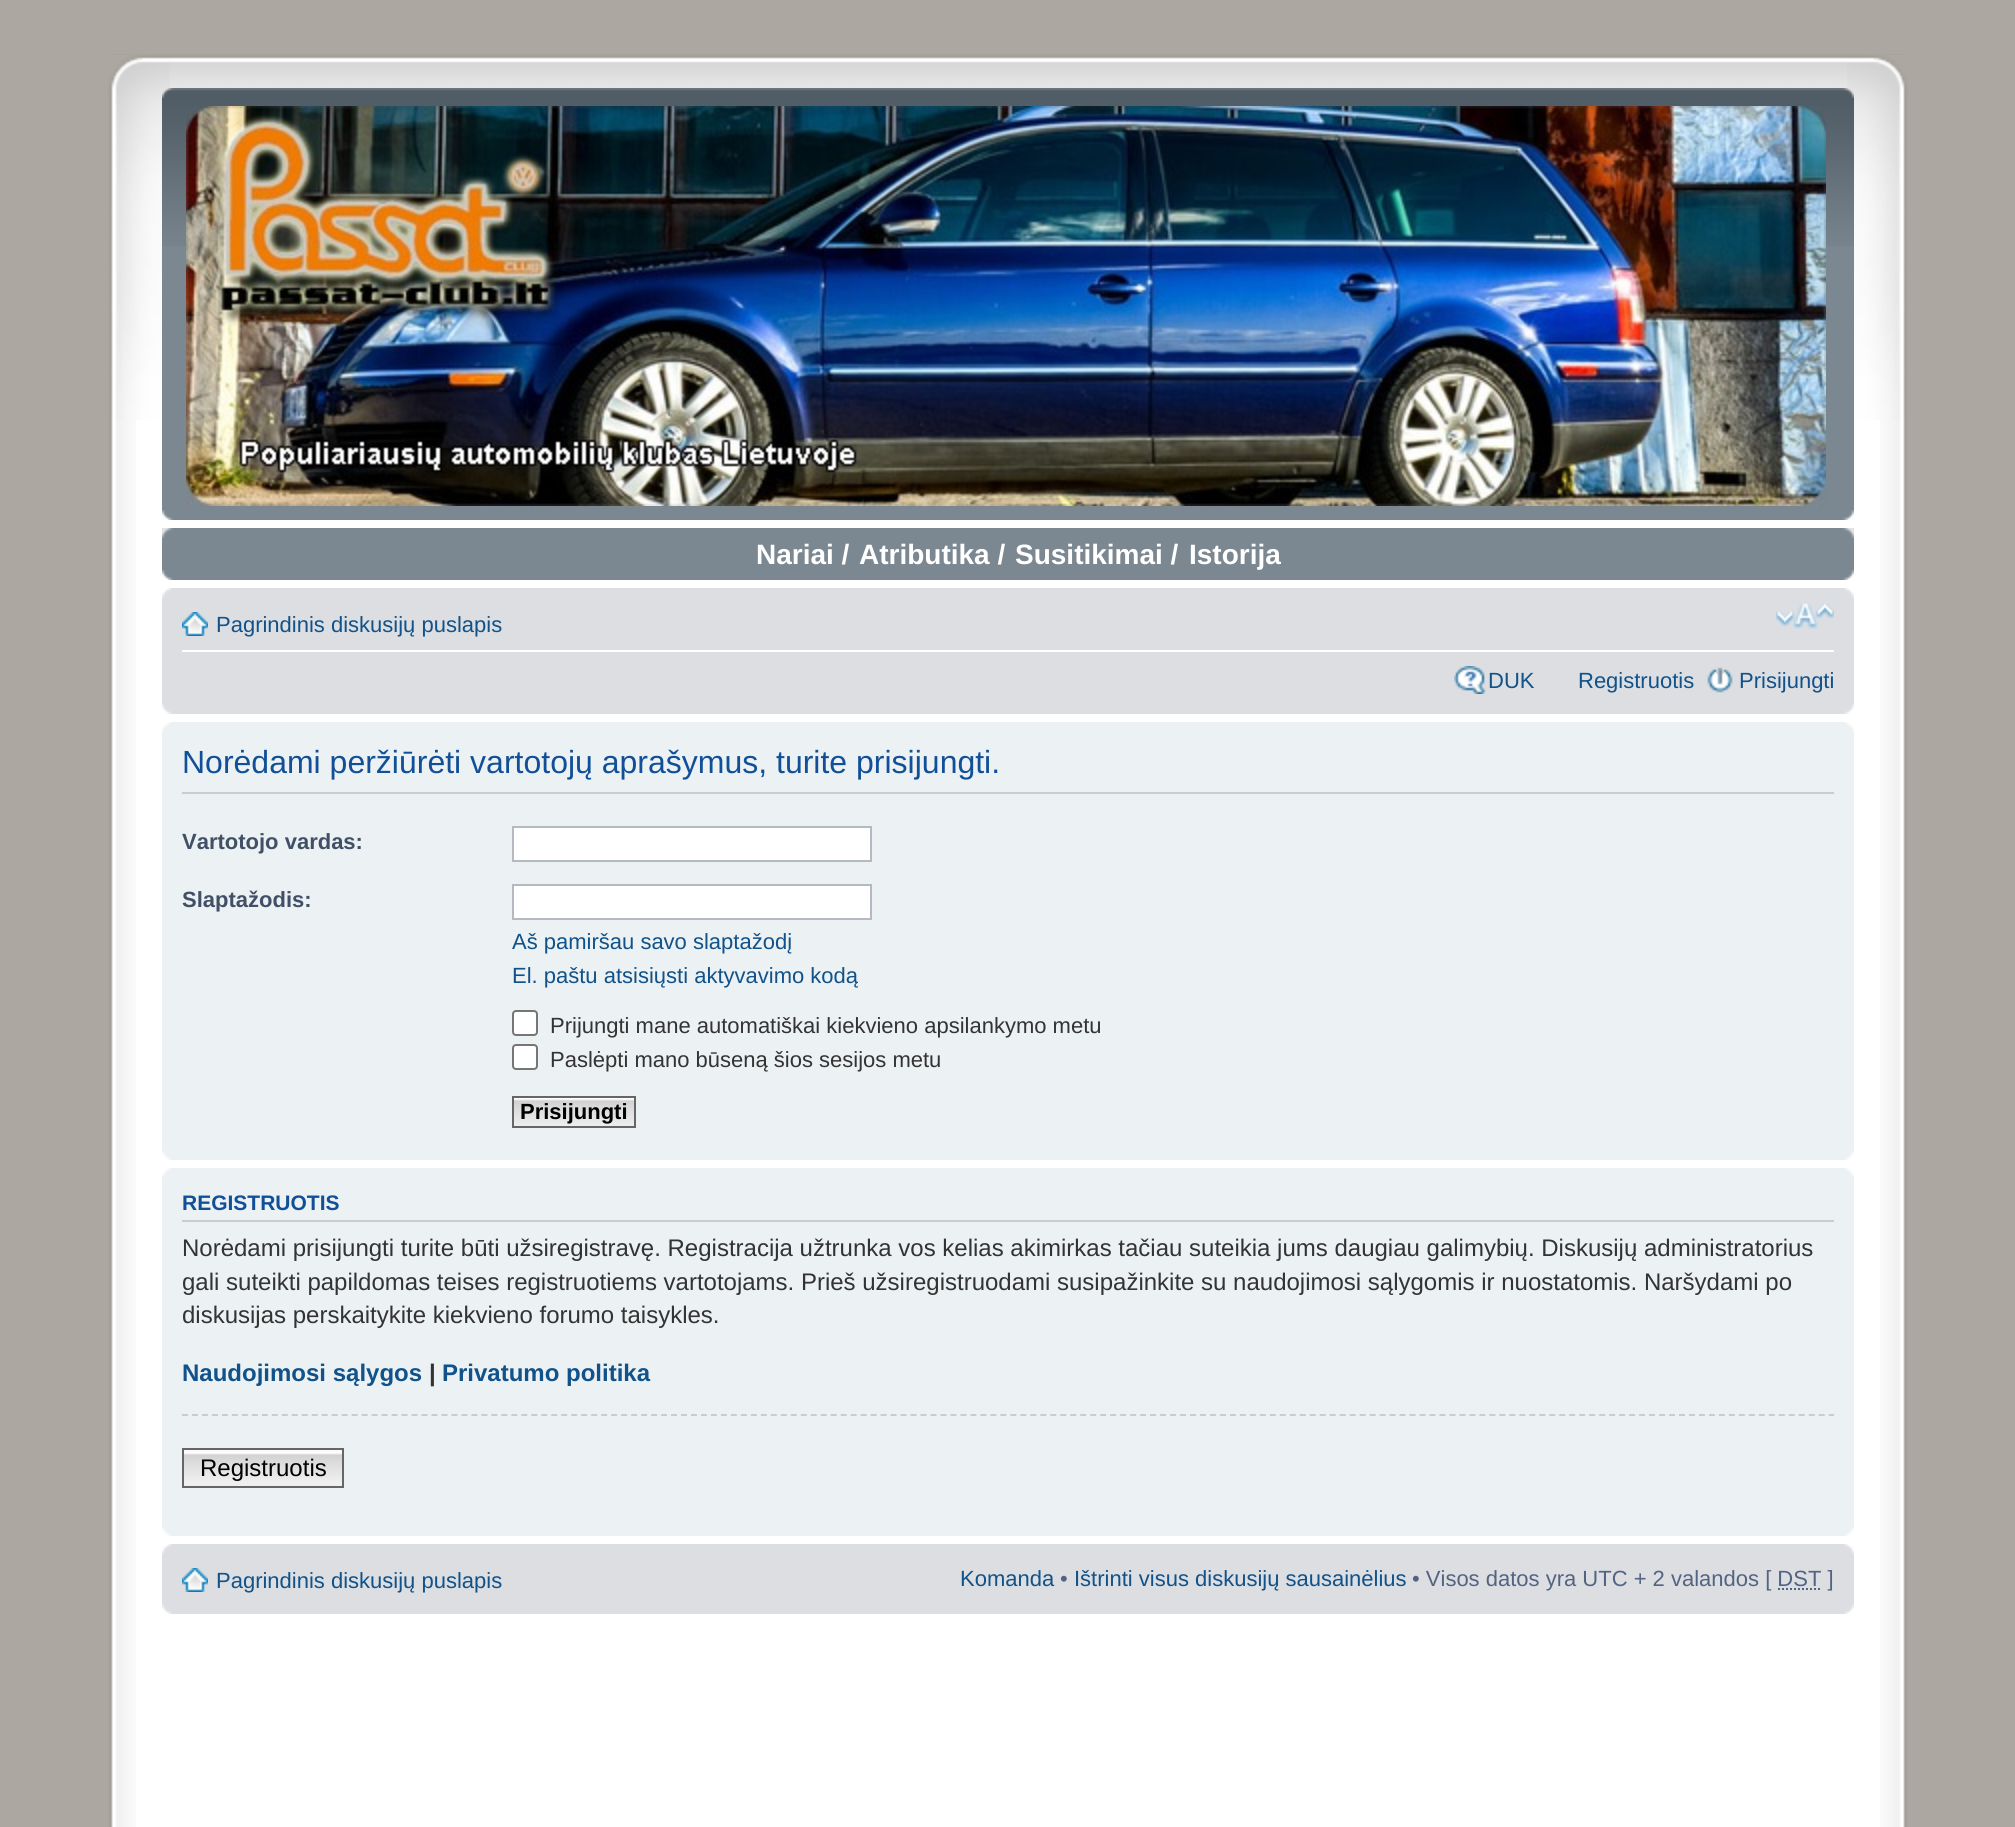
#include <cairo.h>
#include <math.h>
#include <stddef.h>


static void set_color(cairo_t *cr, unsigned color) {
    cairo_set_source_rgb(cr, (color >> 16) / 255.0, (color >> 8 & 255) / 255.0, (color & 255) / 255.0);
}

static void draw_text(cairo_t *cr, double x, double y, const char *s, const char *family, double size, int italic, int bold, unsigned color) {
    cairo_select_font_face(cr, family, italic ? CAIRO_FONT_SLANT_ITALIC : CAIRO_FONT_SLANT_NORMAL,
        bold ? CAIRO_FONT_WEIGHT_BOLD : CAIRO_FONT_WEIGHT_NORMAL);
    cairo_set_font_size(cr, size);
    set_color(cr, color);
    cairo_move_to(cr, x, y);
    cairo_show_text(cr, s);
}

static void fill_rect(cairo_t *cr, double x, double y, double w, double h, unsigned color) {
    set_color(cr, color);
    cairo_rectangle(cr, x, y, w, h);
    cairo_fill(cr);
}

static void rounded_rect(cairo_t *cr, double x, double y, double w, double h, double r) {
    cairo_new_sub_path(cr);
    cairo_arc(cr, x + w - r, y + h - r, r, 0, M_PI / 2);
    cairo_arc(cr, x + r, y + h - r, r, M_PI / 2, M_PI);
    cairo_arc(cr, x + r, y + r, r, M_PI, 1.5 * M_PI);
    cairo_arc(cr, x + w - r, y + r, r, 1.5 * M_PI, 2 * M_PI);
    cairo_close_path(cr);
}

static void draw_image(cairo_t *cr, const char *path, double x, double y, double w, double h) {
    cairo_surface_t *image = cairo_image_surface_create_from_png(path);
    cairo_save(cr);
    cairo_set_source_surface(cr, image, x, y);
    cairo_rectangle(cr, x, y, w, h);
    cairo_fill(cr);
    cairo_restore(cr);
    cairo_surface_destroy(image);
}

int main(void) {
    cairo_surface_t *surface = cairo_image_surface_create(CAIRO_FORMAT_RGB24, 2015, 1827);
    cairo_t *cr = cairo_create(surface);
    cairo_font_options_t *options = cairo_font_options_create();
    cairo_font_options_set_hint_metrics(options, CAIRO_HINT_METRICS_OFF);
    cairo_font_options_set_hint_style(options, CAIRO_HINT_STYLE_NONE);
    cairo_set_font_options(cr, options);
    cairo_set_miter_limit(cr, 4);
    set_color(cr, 0xACA8A1);
    cairo_paint(cr);
    fill_rect(cr, 136, 420, 1744, 1407, 0xFFFFFF);
    draw_image(cr, "assets/img1.png", 108, 420, 28, 1407);
    draw_image(cr, "assets/img2.png", 1880, 420, 28, 1407);
    draw_image(cr, "assets/img3.png", 108, 54, 1800, 34);
    draw_image(cr, "assets/img4.png", 108, 55, 62, 365);
    draw_image(cr, "assets/img5.png", 1847, 55, 61, 365);
    fill_rect(cr, 162, 246, 1692, 274, 0x7C8891);
    draw_image(cr, "assets/img6.png", 162, 88, 1692, 158);
    draw_image(cr, "assets/img7.png", 162, 88, 11, 10);
    draw_image(cr, "assets/img8.png", 1843, 88, 11, 10);
    draw_image(cr, "assets/img9.png", 186, 106, 1640, 400);
    draw_image(cr, "assets/img10.png", 162, 510, 11, 10);
    draw_image(cr, "assets/img11.png", 1843, 510, 11, 10);
    fill_rect(cr, 162, 528, 1692, 52, 0x7C8891);
    draw_image(cr, "assets/img12.png", 162, 528, 11, 10);
    draw_image(cr, "assets/img13.png", 1843, 528, 11, 10);
    draw_text(cr, 756, 564, "Nariai /", "Liberation Sans", 28, 0, 1, 0xFFFFFF);
    draw_text(cr, 859, 564, "Atributika /", "Liberation Sans", 28, 0, 1, 0xFFFFFF);
    draw_text(cr, 1015, 564, "Susitikimai /", "Liberation Sans", 28, 0, 1, 0xFFFFFF);
    draw_text(cr, 1189, 564, "Istorija", "Liberation Sans", 28, 0, 1, 0xFFFFFF);
    draw_image(cr, "assets/img10.png", 162, 570, 11, 10);
    draw_image(cr, "assets/img11.png", 1843, 570, 11, 10);
    fill_rect(cr, 162, 588, 1692, 126, 0xDCDEE2);
    draw_image(cr, "assets/img14.png", 162, 588, 10, 10);
    draw_image(cr, "assets/img15.png", 1844, 588, 10, 10);
    fill_rect(cr, 182, 650, 1652, 2, 0xFFFFFF);
    draw_image(cr, "assets/img16.png", 182, 612, 26, 24);
    draw_text(cr, 216, 632, "Pagrindinis diskusijų puslapis", "Liberation Sans", 22, 0, 0, 0x105289);
    draw_image(cr, "assets/img17.png", 1776, 603, 58, 26);
    draw_image(cr, "assets/img18.png", 1454, 666, 32, 28);
    draw_text(cr, 1488, 688, "DUK", "Liberation Sans", 22, 0, 0, 0x105289);
    draw_text(cr, 1578, 688, "Registruotis", "Liberation Sans", 22, 0, 0, 0x105289);
    draw_image(cr, "assets/img19.png", 1707, 667, 26, 26);
    draw_text(cr, 1739, 688, "Prisijungti", "Liberation Sans", 22, 0, 0, 0x105289);
    draw_image(cr, "assets/img20.png", 162, 704, 10, 10);
    draw_image(cr, "assets/img21.png", 1844, 704, 10, 10);
    fill_rect(cr, 162, 722, 1692, 438, 0xECF1F3);
    draw_image(cr, "assets/img22.png", 162, 722, 9, 10);
    draw_image(cr, "assets/img23.png", 1845, 722, 9, 10);
    fill_rect(cr, 182, 792, 1652, 2, 0xCCCCCC);
    draw_text(cr, 182, 773, "Norėdami peržiūrėti vartotojų aprašymus, turite prisijungti.", "Liberation Sans", 32, 0, 0, 0x115098);
    draw_text(cr, 182, 849, "Vartotojo vardas:", "Liberation Sans", 22, 0, 1, 0x425067);
    set_color(cr, 0xFFFFFF);
    cairo_rectangle(cr, 513, 827, 358, 34);
    cairo_fill_preserve(cr);
    set_color(cr, 0xB4BAC0);
    cairo_stroke(cr);
    draw_text(cr, 182, 907, "Slaptažodis:", "Liberation Sans", 22, 0, 1, 0x425067);
    set_color(cr, 0xFFFFFF);
    cairo_rectangle(cr, 513, 885, 358, 34);
    cairo_fill_preserve(cr);
    set_color(cr, 0xB4BAC0);
    cairo_stroke(cr);
    draw_text(cr, 512, 949, "Aš pamiršau savo slaptažodį", "Liberation Sans", 22, 0, 0, 0x105289);
    draw_text(cr, 512, 983, "El. paštu atsisiųsti aktyvavimo kodą", "Liberation Sans", 22, 0, 0, 0x105289);
    set_color(cr, 0xFFFFFF);
    rounded_rect(cr, 513, 1011, 24, 24, 3);
    cairo_fill_preserve(cr);
    set_color(cr, 0x767676);
    cairo_stroke(cr);
    draw_text(cr, 550, 1033, "Prijungti mane automatiškai kiekvieno apsilankymo metu", "Liberation Sans", 22, 0, 0, 0x333333);
    set_color(cr, 0xFFFFFF);
    rounded_rect(cr, 513, 1045, 24, 24, 3);
    cairo_fill_preserve(cr);
    set_color(cr, 0x767676);
    cairo_stroke(cr);
    draw_text(cr, 550, 1067, "Paslėpti mano būseną šios sesijos metu", "Liberation Sans", 22, 0, 0, 0x333333);
    draw_image(cr, "assets/img24.png", 514, 1098, 120, 28);
    cairo_rectangle(cr, 513, 1097, 122, 30);
    set_color(cr, 0x666666);
    cairo_stroke(cr);
    draw_text(cr, 520, 1119, "Prisijungti", "Liberation Sans", 22, 0, 1, 0x000000);
    draw_image(cr, "assets/img25.png", 162, 1150, 9, 10);
    draw_image(cr, "assets/img26.png", 1845, 1150, 9, 10);
    fill_rect(cr, 162, 1168, 1692, 368, 0xECF1F3);
    draw_image(cr, "assets/img22.png", 162, 1168, 9, 10);
    draw_image(cr, "assets/img23.png", 1845, 1168, 9, 10);
    fill_rect(cr, 182, 1220, 1652, 2, 0xCCCCCC);
    draw_text(cr, 182, 1210, "REGISTRUOTIS", "Liberation Sans", 21, 0, 1, 0x115098);
    draw_text(cr, 182, 1256, "Norėdami prisijungti turite būti užsiregistravę. Registracija užtrunka vos kelias akimirkas tačiau suteikia jums daugiau galimybių. Diskusijų administratorius", "Liberation Sans", 24, 0, 0, 0x333333);
    draw_text(cr, 182, 1290, "gali suteikti papildomas teises registruotiems vartotojams. Prieš užsiregistruodami susipažinkite su naudojimosi sąlygomis ir nuostatomis. Naršydami po", "Liberation Sans", 24, 0, 0, 0x333333);
    draw_text(cr, 182, 1323, "diskusijas perskaitykite kiekvieno forumo taisykles.", "Liberation Sans", 24, 0, 0, 0x333333);
    draw_text(cr, 182, 1381, "Naudojimosi sąlygos", "Liberation Sans", 24, 0, 1, 0x105289);
    draw_text(cr, 429, 1381, "|", "Liberation Sans", 24, 0, 1, 0x333333);
    draw_text(cr, 442, 1381, "Privatumo politika", "Liberation Sans", 24, 0, 1, 0x105289);
    cairo_new_path(cr);
    cairo_move_to(cr, 182, 1415);
    cairo_line_to(cr, 1834, 1415);
    set_color(cr, 0xCCCCCC);
    cairo_set_dash(cr, (double[]){6, 3.98}, 2, 0);
    cairo_stroke(cr);
    draw_image(cr, "assets/img27.png", 184, 1452, 158, 34);
    fill_rect(cr, 184, 1450, 158, 2, 0xFAFAFA);
    cairo_rectangle(cr, 183, 1449, 160, 38);
    set_color(cr, 0x666666);
    cairo_set_dash(cr, NULL, 0, 0);
    cairo_stroke(cr);
    draw_text(cr, 200, 1476, "Registruotis", "Liberation Sans", 24, 0, 0, 0x000000);
    draw_image(cr, "assets/img25.png", 162, 1526, 9, 10);
    draw_image(cr, "assets/img26.png", 1845, 1526, 9, 10);
    fill_rect(cr, 162, 1544, 1692, 70, 0xDCDEE2);
    draw_image(cr, "assets/img14.png", 162, 1544, 10, 10);
    draw_image(cr, "assets/img15.png", 1844, 1544, 10, 10);
    draw_image(cr, "assets/img16.png", 182, 1568, 26, 24);
    draw_text(cr, 216, 1588, "Pagrindinis diskusijų puslapis", "Liberation Sans", 22, 0, 0, 0x105289);
    draw_text(cr, 960, 1586, "Komanda", "Liberation Sans", 22, 0, 0, 0x105289);
    draw_text(cr, 1060, 1586, "•", "Liberation Sans", 22, 0, 0, 0x536482);
    draw_text(cr, 1074, 1586, "Ištrinti visus diskusijų sausainėlius", "Liberation Sans", 22, 0, 0, 0x105289);
    draw_text(cr, 1412, 1586, "• Visos datos yra UTC + 2 valandos [ DST ]", "Liberation Sans", 22, 0, 0, 0x536482);
    cairo_new_path(cr);
    cairo_move_to(cr, 1778, 1589);
    cairo_line_to(cr, 1822, 1589);
    cairo_set_dash(cr, (double[]){2, 2}, 2, 0);
    cairo_stroke(cr);
    draw_image(cr, "assets/img20.png", 162, 1604, 10, 10);
    draw_image(cr, "assets/img21.png", 1844, 1604, 10, 10);
    cairo_surface_write_to_png(surface, "output.png");
    cairo_font_options_destroy(options);
    cairo_destroy(cr);
    cairo_surface_destroy(surface);
    return 0;
}
